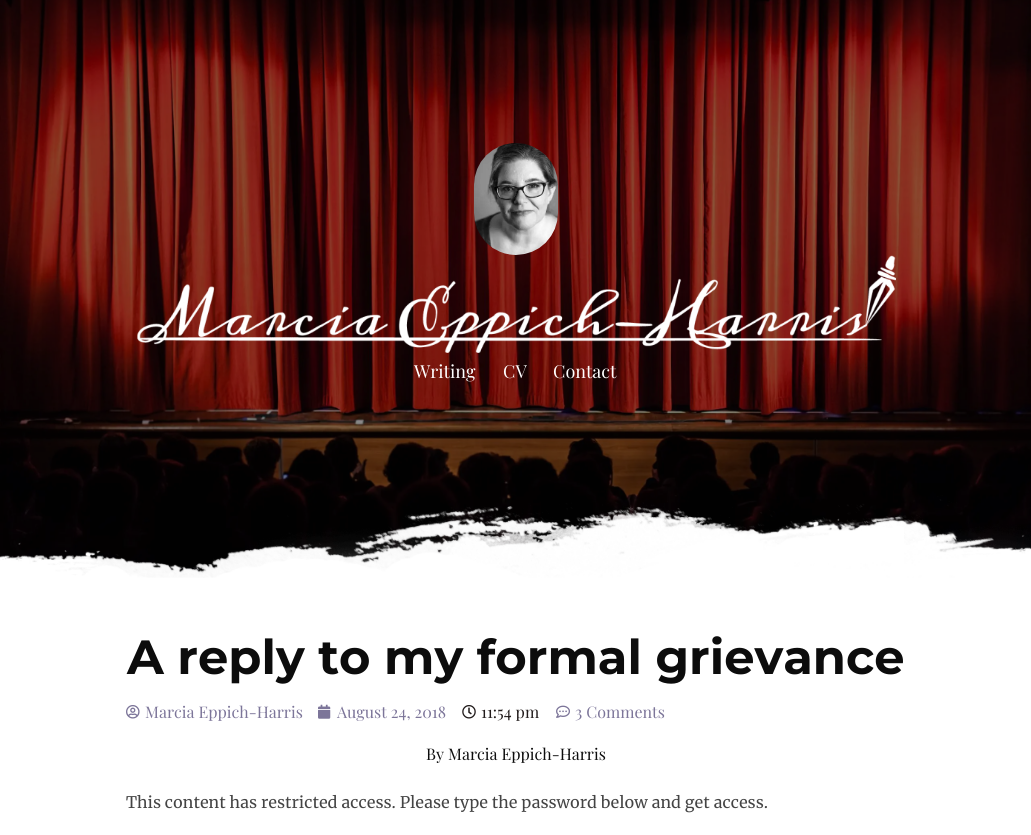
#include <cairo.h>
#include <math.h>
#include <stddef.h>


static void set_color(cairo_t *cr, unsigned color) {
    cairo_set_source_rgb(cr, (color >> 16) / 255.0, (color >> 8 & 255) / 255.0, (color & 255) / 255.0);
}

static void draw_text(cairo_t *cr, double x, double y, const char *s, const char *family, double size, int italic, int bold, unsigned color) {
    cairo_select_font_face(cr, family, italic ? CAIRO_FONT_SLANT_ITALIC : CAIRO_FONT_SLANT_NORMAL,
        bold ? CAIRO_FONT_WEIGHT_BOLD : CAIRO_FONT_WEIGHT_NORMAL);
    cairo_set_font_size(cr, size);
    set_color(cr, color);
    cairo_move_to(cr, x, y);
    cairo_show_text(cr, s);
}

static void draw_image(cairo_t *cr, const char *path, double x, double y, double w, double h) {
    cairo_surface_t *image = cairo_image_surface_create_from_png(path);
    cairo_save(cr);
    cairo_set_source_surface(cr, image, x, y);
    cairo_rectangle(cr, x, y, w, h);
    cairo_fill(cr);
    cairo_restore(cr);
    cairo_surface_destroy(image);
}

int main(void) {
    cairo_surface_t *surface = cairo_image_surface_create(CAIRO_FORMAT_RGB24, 1031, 835);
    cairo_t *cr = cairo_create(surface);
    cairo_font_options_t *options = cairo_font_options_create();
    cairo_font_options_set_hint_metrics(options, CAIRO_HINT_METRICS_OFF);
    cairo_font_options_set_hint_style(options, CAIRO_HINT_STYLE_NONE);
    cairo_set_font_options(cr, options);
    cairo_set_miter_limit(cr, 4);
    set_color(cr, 0xFFFFFF);
    cairo_paint(cr);
    draw_image(cr, "assets/img1.png", 0, 0, 1031, 578);
    draw_image(cr, "assets/img2.png", 474, 143, 84, 112);
    draw_image(cr, "assets/img3.png", 137, 255, 759, 98);
    draw_text(cr, 414, 378, "Writing", "Playfair Display", 18, 0, 0, 0xFFFFFF);
    draw_text(cr, 503, 378, "CV", "Playfair Display", 18, 0, 0, 0xFFFFFF);
    draw_text(cr, 553, 378, "Contact", "Playfair Display", 18, 0, 0, 0xFFFFFF);
    draw_image(cr, "assets/img4.png", 0, 495, 1031, 83);
    draw_text(cr, 127, 674, "A reply to my formal grievance", "Montserrat Thin", 48, 0, 0, 0x0C0C0C);
    draw_image(cr, "assets/img5.png", 126, 705, 14, 14);
    draw_text(cr, 145, 718, "Marcia Eppich-Harris", "Playfair Display", 16, 0, 0, 0x7C7599);
    draw_image(cr, "assets/img6.png", 318, 704, 13, 15);
    draw_text(cr, 337, 718, "A", "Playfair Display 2", 16, 0, 0, 0x7C7599);
    draw_text(cr, 347, 718, "ugust 24, 2018", "Playfair Display", 16, 0, 0, 0x7C7599);
    draw_image(cr, "assets/img7.png", 462, 705, 14, 14);
    draw_text(cr, 481, 718, "11:54 pm", "Playfair Display", 16, 0, 0, 0x211B1B);
    draw_image(cr, "assets/img8.png", 556, 705, 14, 13);
    draw_text(cr, 575, 718, "3 Comments", "Playfair Display", 16, 0, 0, 0x7C7599);
    draw_text(cr, 426, 760, "By Marcia Eppich-Harris", "Playfair Display", 16, 0, 0, 0x0C0C0C);
    draw_text(cr, 126, 808, "This content has restricted access. Please type the password below and get access.", "Merriweather", 16, 0, 0, 0x444444);
    cairo_surface_write_to_png(surface, "output.png");
    cairo_font_options_destroy(options);
    cairo_destroy(cr);
    cairo_surface_destroy(surface);
    return 0;
}
